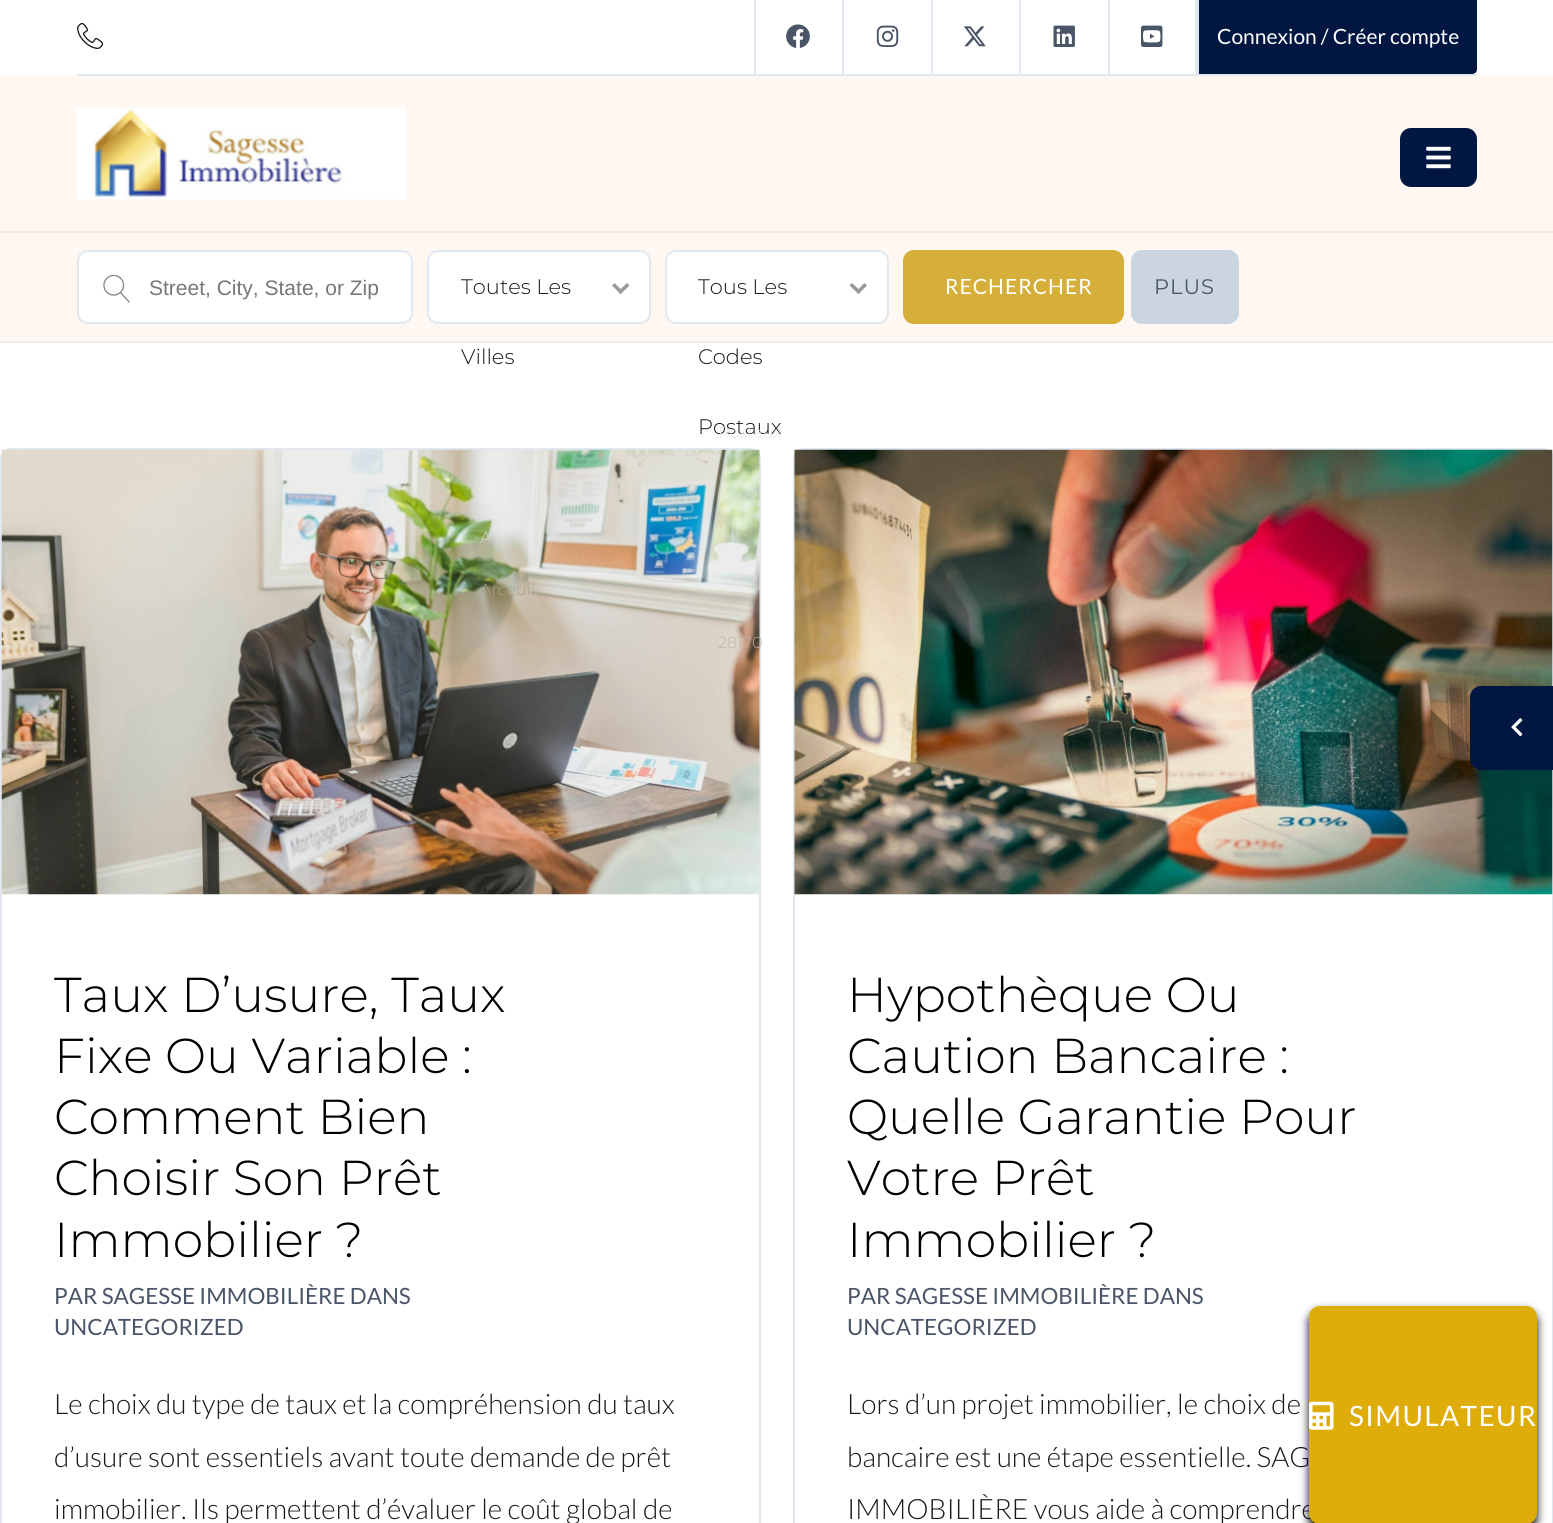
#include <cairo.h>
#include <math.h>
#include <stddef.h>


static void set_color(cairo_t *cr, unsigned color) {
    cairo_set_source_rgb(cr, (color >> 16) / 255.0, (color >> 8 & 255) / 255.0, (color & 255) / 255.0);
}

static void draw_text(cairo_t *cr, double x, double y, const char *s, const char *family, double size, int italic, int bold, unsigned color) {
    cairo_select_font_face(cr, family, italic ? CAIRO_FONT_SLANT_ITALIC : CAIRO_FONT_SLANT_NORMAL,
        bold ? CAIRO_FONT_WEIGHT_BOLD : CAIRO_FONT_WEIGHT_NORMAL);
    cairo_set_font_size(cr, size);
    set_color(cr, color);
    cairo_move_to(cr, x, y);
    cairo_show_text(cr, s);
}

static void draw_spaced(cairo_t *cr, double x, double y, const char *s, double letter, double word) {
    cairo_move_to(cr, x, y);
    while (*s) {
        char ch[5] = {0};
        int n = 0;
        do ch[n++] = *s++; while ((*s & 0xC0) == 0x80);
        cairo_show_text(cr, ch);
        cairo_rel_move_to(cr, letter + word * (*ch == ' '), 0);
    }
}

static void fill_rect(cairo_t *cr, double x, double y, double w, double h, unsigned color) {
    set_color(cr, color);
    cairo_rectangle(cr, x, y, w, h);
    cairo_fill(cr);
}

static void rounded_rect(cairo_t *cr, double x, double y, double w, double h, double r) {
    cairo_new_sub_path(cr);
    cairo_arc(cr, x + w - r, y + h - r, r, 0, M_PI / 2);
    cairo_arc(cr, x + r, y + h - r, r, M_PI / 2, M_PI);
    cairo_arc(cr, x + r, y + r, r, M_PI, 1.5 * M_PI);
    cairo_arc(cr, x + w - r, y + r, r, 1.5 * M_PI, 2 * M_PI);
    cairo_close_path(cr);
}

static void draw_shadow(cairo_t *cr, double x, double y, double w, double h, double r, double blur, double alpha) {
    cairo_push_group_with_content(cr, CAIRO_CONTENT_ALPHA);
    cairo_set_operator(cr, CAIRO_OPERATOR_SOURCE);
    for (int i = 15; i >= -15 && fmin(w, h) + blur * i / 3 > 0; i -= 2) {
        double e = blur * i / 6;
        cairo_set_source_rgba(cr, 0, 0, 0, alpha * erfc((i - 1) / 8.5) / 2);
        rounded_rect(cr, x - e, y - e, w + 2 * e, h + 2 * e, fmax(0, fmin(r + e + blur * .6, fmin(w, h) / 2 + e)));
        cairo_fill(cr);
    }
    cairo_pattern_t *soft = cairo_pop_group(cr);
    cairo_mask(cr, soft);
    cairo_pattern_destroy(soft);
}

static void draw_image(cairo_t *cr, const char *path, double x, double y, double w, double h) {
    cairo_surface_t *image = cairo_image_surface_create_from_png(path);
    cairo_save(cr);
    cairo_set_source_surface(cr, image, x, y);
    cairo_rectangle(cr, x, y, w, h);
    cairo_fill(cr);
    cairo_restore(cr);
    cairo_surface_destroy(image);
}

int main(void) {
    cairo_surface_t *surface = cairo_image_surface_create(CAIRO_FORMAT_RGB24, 1553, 1523);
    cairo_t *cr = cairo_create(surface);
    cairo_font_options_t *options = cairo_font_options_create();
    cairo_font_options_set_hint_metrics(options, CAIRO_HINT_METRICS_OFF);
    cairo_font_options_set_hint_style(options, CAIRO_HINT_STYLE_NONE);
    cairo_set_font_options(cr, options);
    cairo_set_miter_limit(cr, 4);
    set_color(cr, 0xFFFFFF);
    cairo_paint(cr);
    fill_rect(cr, 0, 75, 1553, 156, 0xFFF7F1);
    fill_rect(cr, 77, 74, 1400, 2, 0xE2E8F0);
    draw_image(cr, "assets/img1.png", 77, 23, 26, 26);
    fill_rect(cr, 842, 0, 2, 74, 0xE2E8F0);
    fill_rect(cr, 754, 0, 2, 74, 0xE2E8F0);
    draw_image(cr, "assets/img2.png", 786, 24, 24, 24);
    fill_rect(cr, 931, 0, 2, 74, 0xE2E8F0);
    draw_image(cr, "assets/img3.png", 876, 25, 23, 22);
    fill_rect(cr, 1019, 0, 2, 74, 0xE2E8F0);
    draw_image(cr, "assets/img4.png", 963, 26, 23, 21);
    fill_rect(cr, 1108, 0, 2, 74, 0xE2E8F0);
    draw_image(cr, "assets/img5.png", 1053, 25, 22, 22);
    fill_rect(cr, 1195, 0, 2, 74, 0xE2E8F0);
    draw_image(cr, "assets/img6.png", 1141, 25, 22, 22);
    set_color(cr, 0x011640);
    cairo_new_path(cr);
    cairo_move_to(cr, 1197, 0);
    cairo_line_to(cr, 1477, 0);
    cairo_line_to(cr, 1477, 69);
    cairo_curve_to(cr, 1477, 72, 1475, 74, 1472, 74);
    cairo_line_to(cr, 1197, 74);
    cairo_close_path(cr);
    cairo_fill(cr);
    fill_rect(cr, 1197, 0, 2, 74, 0xE2E8F0);
    draw_text(cr, 1217, 44, "Connexion / Créer compte", "Lato", 21, 0, 0, 0xFFFFFF);
    draw_image(cr, "assets/img7.png", 77, 107, 329, 93);
    set_color(cr, 0x011640);
    rounded_rect(cr, 1400, 128, 77, 59, 11);
    cairo_fill(cr);
    draw_image(cr, "assets/img8.png", 1426, 146, 25, 23);
    fill_rect(cr, 0, 233, 1553, 108, 0xFFF7F1);
    fill_rect(cr, 0, 231, 1553, 2, 0xF2ECE8);
    fill_rect(cr, 0, 341, 1553, 2, 0xF2ECE8);
    set_color(cr, 0xFFFFFF);
    rounded_rect(cr, 78, 251, 334, 72, 10);
    cairo_fill_preserve(cr);
    set_color(cr, 0xE2E8F0);
    cairo_stroke(cr);
    draw_image(cr, "assets/img9.png", 103, 275, 27, 28);
    draw_text(cr, 149, 295, "Street, City, State, or Zip", "Liberation Sans", 21, 0, 0, 0x777777);
    set_color(cr, 0xFFFFFF);
    rounded_rect(cr, 428, 251, 222, 72, 10);
    cairo_fill_preserve(cr);
    set_color(cr, 0xE2E8F0);
    cairo_stroke(cr);
    draw_text(cr, 461, 294, "Toutes Les", "Montserrat Light", 21, 0, 0, 0x191919);
    set_color(cr, 0x999999);
    cairo_new_path(cr);
    cairo_move_to(cr, 627, 283);
    cairo_line_to(cr, 629.5, 285.5);
    cairo_line_to(cr, 620.5, 294);
    cairo_line_to(cr, 618, 291.5);
    cairo_close_path(cr);
    cairo_fill(cr);
    cairo_new_path(cr);
    cairo_move_to(cr, 614.5, 283);
    cairo_line_to(cr, 623, 291.5);
    cairo_line_to(cr, 620.5, 294);
    cairo_line_to(cr, 612, 285.5);
    cairo_close_path(cr);
    cairo_fill(cr);
    draw_text(cr, 461, 364, "Villes", "Montserrat Light", 21, 0, 0, 0x191919);
    rounded_rect(cr, 1, 449, 759, 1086, 10);
    set_color(cr, 0xE2E8F0);
    cairo_stroke(cr);
    draw_image(cr, "assets/img11.png", 1, 449, 759, 446);
    draw_text(cr, 480, 543, "A", "Montserrat Light", 16, 0, 0, 0xD1D5C8);
    draw_text(cr, 480, 595, "Arceuil", "Montserrat Light", 16, 0, 0, 0xA7A289);
    set_color(cr, 0xFFFFFF);
    rounded_rect(cr, 666, 251, 222, 72, 10);
    cairo_fill_preserve(cr);
    set_color(cr, 0xE2E8F0);
    cairo_stroke(cr);
    draw_text(cr, 698, 294, "Tous Les", "Montserrat Light", 21, 0, 0, 0x191919);
    set_color(cr, 0x999999);
    cairo_new_path(cr);
    cairo_move_to(cr, 864.5, 283);
    cairo_line_to(cr, 867, 285.5);
    cairo_line_to(cr, 858.5, 294);
    cairo_line_to(cr, 856, 291.5);
    cairo_close_path(cr);
    cairo_fill(cr);
    cairo_new_path(cr);
    cairo_move_to(cr, 852, 283);
    cairo_line_to(cr, 861, 291.5);
    cairo_line_to(cr, 858.5, 294);
    cairo_line_to(cr, 849.5, 285.5);
    cairo_close_path(cr);
    cairo_fill(cr);
    draw_text(cr, 698, 364, "Codes", "Montserrat Light", 21, 0, 0, 0x191919);
    draw_text(cr, 698, 434, "Postaux", "Montserrat Light", 21, 0, 0, 0x191919);
    draw_text(cr, 718, 438, "Postaux", "Montserrat Light", 16, 0, 0, 0xE5E5E5);
    draw_text(cr, 718, 648, "28170", "Montserrat Light", 16, 0, 0, 0xC2B2A5);
    set_color(cr, 0xD6AF3B);
    rounded_rect(cr, 903, 250, 221, 74, 11);
    cairo_fill(cr);
    cairo_select_font_face(cr, "Lato", CAIRO_FONT_SLANT_NORMAL, CAIRO_FONT_WEIGHT_NORMAL);
    cairo_set_font_size(cr, 21);
    set_color(cr, 0xFFFFFF);
    draw_spaced(cr, 945, 294, "RECHERCHER", 1, 0);
    set_color(cr, 0xCBD5E0);
    rounded_rect(cr, 1131, 250, 108, 74, 11);
    cairo_fill(cr);
    cairo_select_font_face(cr, "Montserrat Thin", CAIRO_FONT_SLANT_NORMAL, CAIRO_FONT_WEIGHT_NORMAL);
    set_color(cr, 0x4A5568);
    draw_spaced(cr, 1154, 294, "PLUS", 1, 0);
    rounded_rect(cr, 794, 449, 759, 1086, 10);
    set_color(cr, 0xE2E8F0);
    cairo_stroke(cr);
    draw_image(cr, "assets/img12.png", 794, 449, 759, 446);
    set_color(cr, 0x011640);
    cairo_new_path(cr);
    cairo_move_to(cr, 1481, 686);
    cairo_line_to(cr, 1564, 686);
    cairo_line_to(cr, 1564, 770);
    cairo_line_to(cr, 1481, 770);
    cairo_curve_to(cr, 1475, 770, 1470, 765, 1470, 759);
    cairo_line_to(cr, 1470, 697);
    cairo_curve_to(cr, 1470, 691, 1475, 686, 1481, 686);
    cairo_close_path(cr);
    cairo_fill(cr);
    draw_image(cr, "assets/img10.png", 1511, 718, 12, 19);
    draw_text(cr, 54, 1012, "Taux D’usure, Taux", "Montserrat Light", 49, 0, 0, 0x000000);
    draw_text(cr, 54, 1073, "Fixe Ou Variable :", "Montserrat Light", 49, 0, 0, 0x000000);
    draw_text(cr, 54, 1134, "Comment Bien", "Montserrat Light", 49, 0, 0, 0x000000);
    draw_text(cr, 54, 1195, "Choisir Son Prêt", "Montserrat Light", 49, 0, 0, 0x000000);
    draw_text(cr, 54, 1257, "Immobilier ?", "Montserrat Light", 49, 0, 0, 0x000000);
    draw_text(cr, 54, 1304, "PAR SAGESSE IMMOBILIÈRE DANS", "Lato", 22.4, 0, 0, 0x4A5568);
    draw_text(cr, 54, 1335, "UNCATEGORIZED", "Lato", 22.4, 0, 0, 0x4A5568);
    draw_text(cr, 54, 1414, "Le choix du type de taux et la compréhension du taux", "Lato Light", 28, 0, 0, 0x191919);
    draw_text(cr, 54, 1467, "d’usure sont essentiels avant toute demande de prêt", "Lato Light", 28, 0, 0, 0x191919);
    draw_text(cr, 54, 1519, "immobilier. Ils permettent d’évaluer le coût global de", "Lato Light", 28, 0, 0, 0x191919);
    draw_text(cr, 847, 1012, "Hypothèque Ou", "Montserrat Light", 49, 0, 0, 0x000000);
    draw_text(cr, 847, 1073, "Caution Bancaire :", "Montserrat Light", 49, 0, 0, 0x000000);
    draw_text(cr, 847, 1134, "Quelle Garantie Pour", "Montserrat Light", 49, 0, 0, 0x000000);
    draw_text(cr, 847, 1195, "Votre Prêt", "Montserrat Light", 49, 0, 0, 0x000000);
    draw_text(cr, 847, 1257, "Immobilier ?", "Montserrat Light", 49, 0, 0, 0x000000);
    draw_text(cr, 847, 1304, "PAR SAGESSE IMMOBILIÈRE DANS", "Lato", 22.4, 0, 0, 0x4A5568);
    draw_text(cr, 847, 1335, "UNCATEGORIZED", "Lato", 22.4, 0, 0, 0x4A5568);
    draw_text(cr, 847, 1414, "Lors d’un projet immobilier, le choix de", "Lato Light", 28, 0, 0, 0x191919);
    draw_text(cr, 847, 1467, "bancaire est une étape essentielle. SAG", "Lato Light", 28, 0, 0, 0x191919);
    draw_text(cr, 847, 1519, "IMMOBILIÈRE vous aide à comprendre", "Lato Light", 28, 0, 0, 0x191919);
    set_color(cr, 0x020202);
    draw_shadow(cr, 1309, 1311, 228, 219, 11, 4.5, 1);
    set_color(cr, 0xDFAD0A);
    rounded_rect(cr, 1309, 1306, 228, 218, 11);
    cairo_fill(cr);
    draw_image(cr, "assets/img13.png", 1309, 1401, 25, 29);
    cairo_select_font_face(cr, "Lato", CAIRO_FONT_SLANT_NORMAL, CAIRO_FONT_WEIGHT_NORMAL);
    set_color(cr, 0xFFFFFF);
    draw_spaced(cr, 1349, 1426, "SIMULATEUR", 1.4, 0);
    cairo_surface_write_to_png(surface, "output.png");
    cairo_font_options_destroy(options);
    cairo_destroy(cr);
    cairo_surface_destroy(surface);
    return 0;
}
